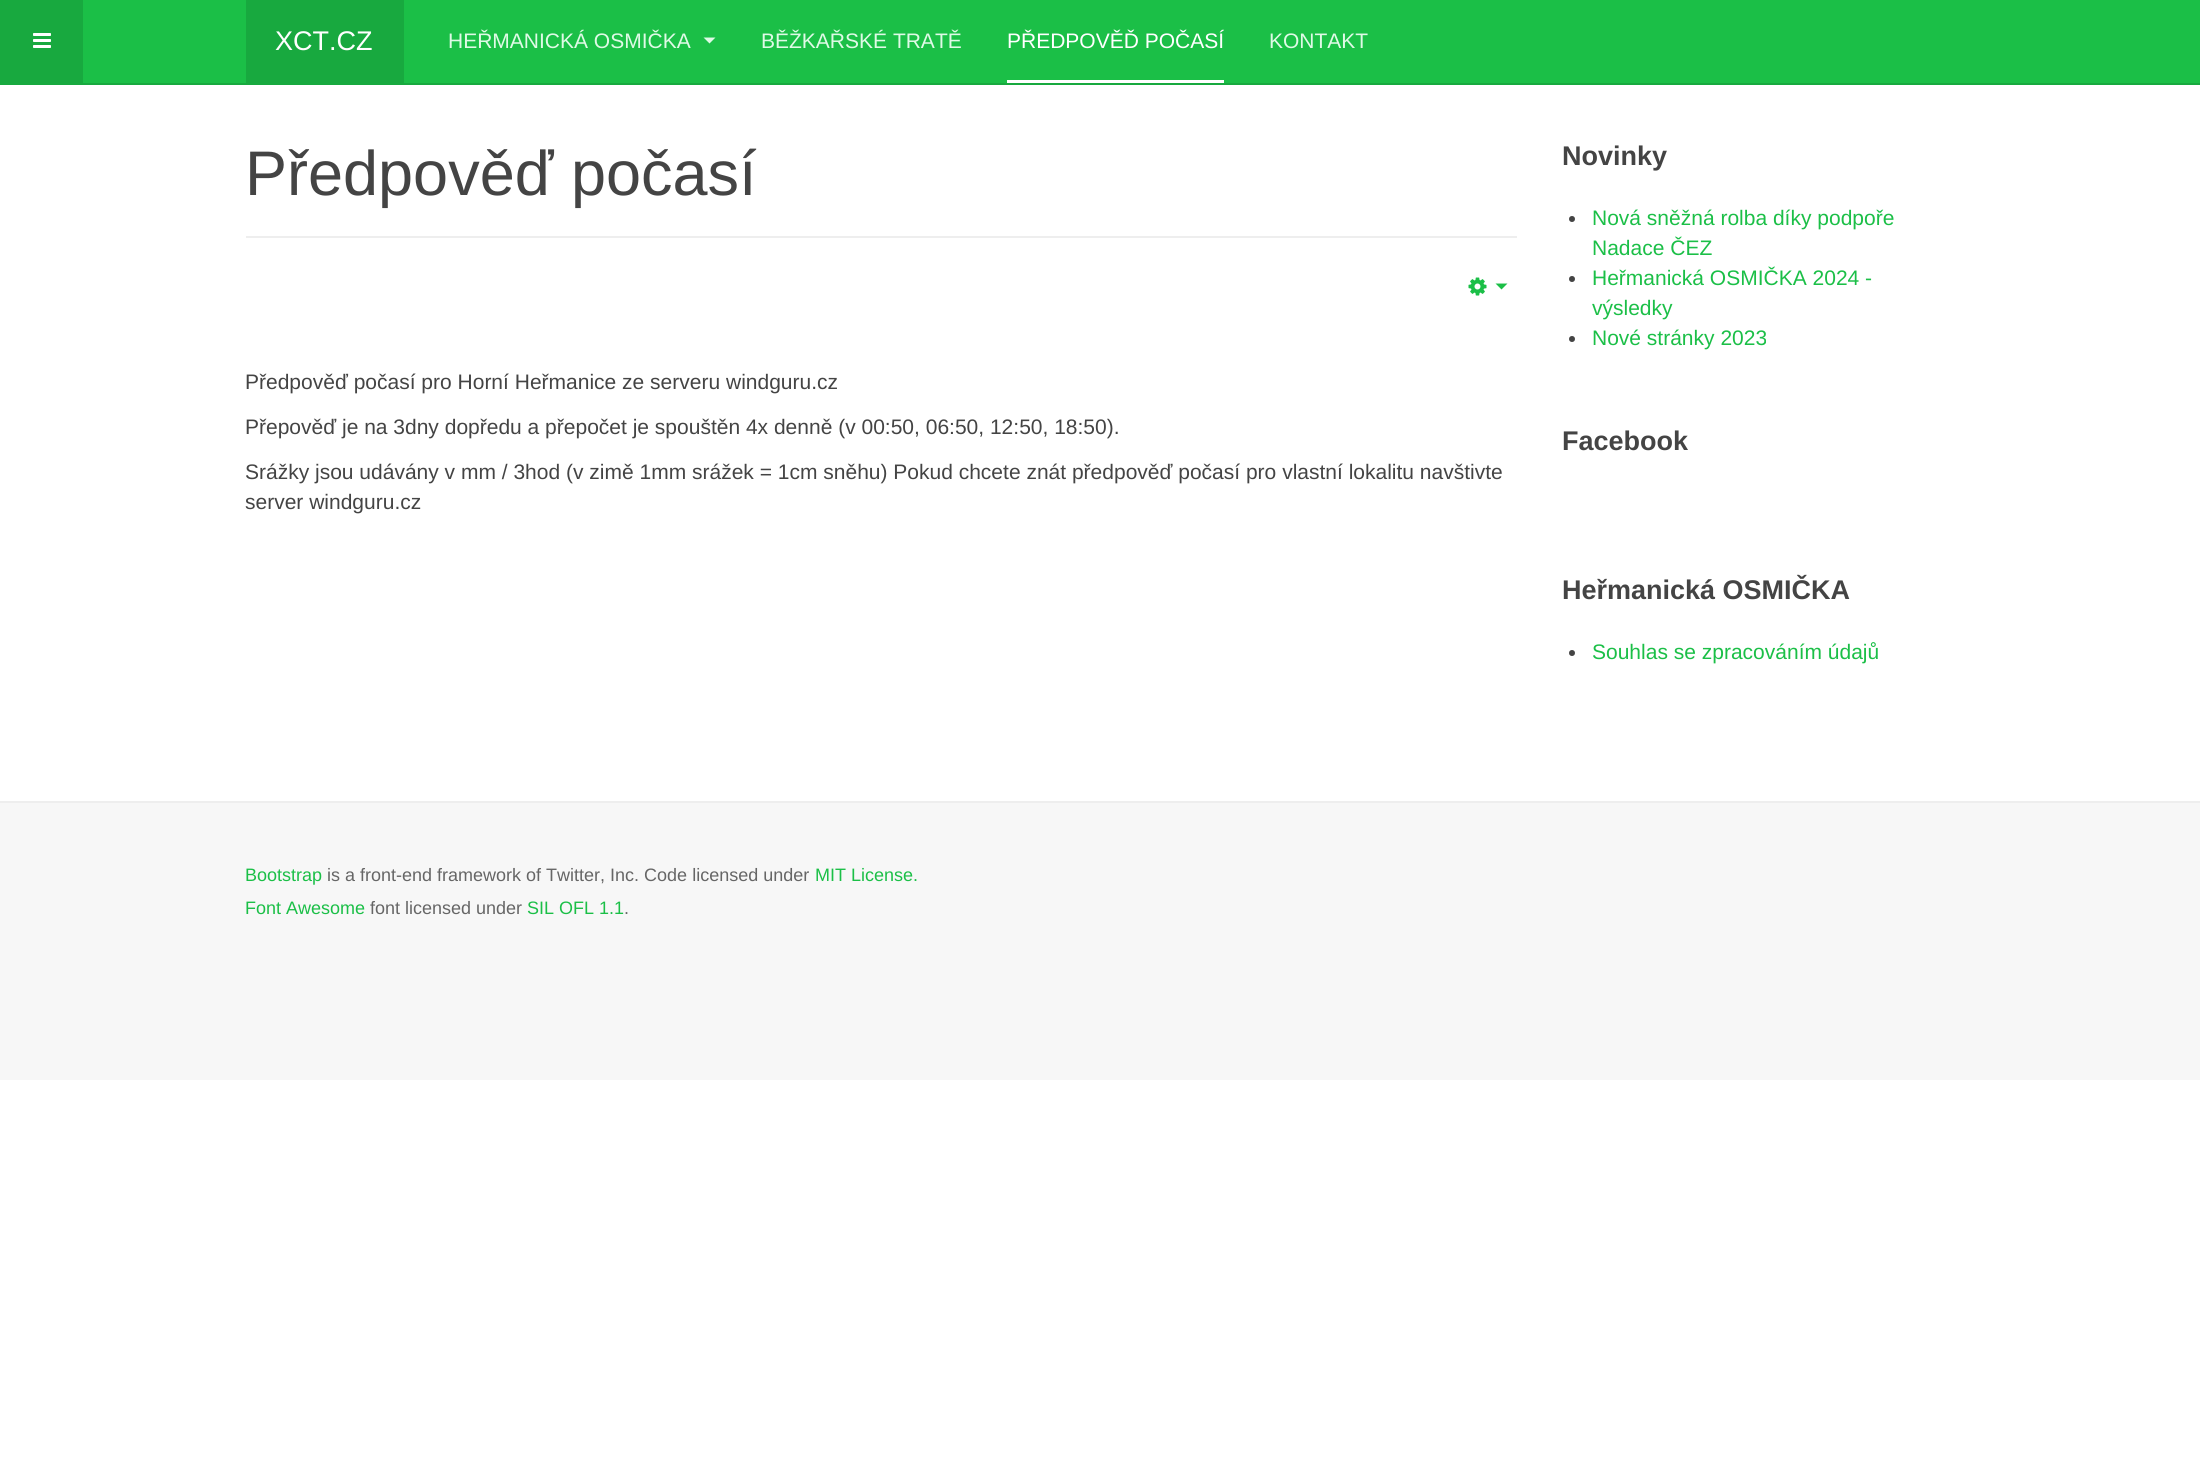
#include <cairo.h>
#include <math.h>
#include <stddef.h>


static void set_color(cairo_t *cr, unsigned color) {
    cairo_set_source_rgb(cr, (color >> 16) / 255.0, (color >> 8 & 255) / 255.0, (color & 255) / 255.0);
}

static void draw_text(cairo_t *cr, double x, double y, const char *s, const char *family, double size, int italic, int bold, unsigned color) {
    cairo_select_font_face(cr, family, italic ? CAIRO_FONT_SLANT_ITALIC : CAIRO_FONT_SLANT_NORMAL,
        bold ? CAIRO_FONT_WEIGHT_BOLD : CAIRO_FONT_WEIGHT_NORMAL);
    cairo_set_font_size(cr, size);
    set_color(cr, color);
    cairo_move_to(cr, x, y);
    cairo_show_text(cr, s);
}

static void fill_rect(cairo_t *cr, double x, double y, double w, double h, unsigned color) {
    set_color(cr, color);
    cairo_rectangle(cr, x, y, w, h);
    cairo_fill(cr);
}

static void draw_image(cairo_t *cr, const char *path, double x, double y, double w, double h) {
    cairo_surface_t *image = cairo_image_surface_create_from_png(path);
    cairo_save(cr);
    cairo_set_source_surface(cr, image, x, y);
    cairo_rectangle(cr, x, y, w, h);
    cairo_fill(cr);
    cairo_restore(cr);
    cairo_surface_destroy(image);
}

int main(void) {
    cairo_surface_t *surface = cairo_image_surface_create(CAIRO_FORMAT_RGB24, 2200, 1469);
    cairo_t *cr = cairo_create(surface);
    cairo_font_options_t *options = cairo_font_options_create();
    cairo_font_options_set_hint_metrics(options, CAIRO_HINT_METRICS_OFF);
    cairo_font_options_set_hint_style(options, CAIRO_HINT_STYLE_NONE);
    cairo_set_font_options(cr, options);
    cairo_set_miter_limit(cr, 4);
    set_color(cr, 0xFFFFFF);
    cairo_paint(cr);
    fill_rect(cr, 83, 0, 2117, 83, 0x1BBF47);
    fill_rect(cr, 0, 83, 2200, 2, 0x18A93F);
    fill_rect(cr, 0, 0, 83, 83, 0x18A93F);
    draw_image(cr, "assets/img1.png", 33, 33, 18, 15);
    fill_rect(cr, 246, 0, 158, 83, 0x18A93F);
    draw_text(cr, 275, 50, "XCT.CZ", "Liberation Sans", 27, 0, 0, 0xFFFFFF);
    draw_text(cr, 448, 48, "HEŘMANICKÁ OSMIČKA", "Liberation Sans", 21, 0, 0, 0xDFFAE6);
    cairo_new_path(cr);
    cairo_move_to(cr, 703.5, 37.5);
    cairo_line_to(cr, 715.5, 37.5);
    cairo_line_to(cr, 709.5, 43.5);
    cairo_close_path(cr);
    cairo_fill(cr);
    draw_text(cr, 761, 48, "BĚŽKAŘSKÉ TRATĚ", "Liberation Sans", 21, 0, 0, 0xDFFAE6);
    fill_rect(cr, 1007, 80, 217, 3, 0xFFFFFF);
    draw_text(cr, 1007, 48, "PŘEDPOVĚĎ POČASÍ", "Liberation Sans", 21, 0, 0, 0xFFFFFF);
    draw_text(cr, 1269, 48, "KONTAKT", "Liberation Sans", 21, 0, 0, 0xDFFAE6);
    fill_rect(cr, 246, 236, 1271, 2, 0xEEEEEE);
    draw_text(cr, 245, 195, "Předpověď počasí", "Liberation Sans", 63, 0, 0, 0x444444);
    draw_image(cr, "assets/img2.png", 1468, 277, 19, 19);
    set_color(cr, 0x1BBF47);
    cairo_new_path(cr);
    cairo_move_to(cr, 1495.5, 283.5);
    cairo_line_to(cr, 1507.5, 283.5);
    cairo_line_to(cr, 1501.5, 289.5);
    cairo_close_path(cr);
    cairo_fill(cr);
    draw_text(cr, 245, 389, "Předpověď počasí pro Horní Heřmanice ze serveru windguru.cz", "Liberation Sans", 21, 0, 0, 0x444444);
    draw_text(cr, 245, 434, "Přepověď je na 3dny dopředu a přepočet je spouštěn 4x denně (v 00:50, 06:50, 12:50, 18:50).", "Liberation Sans", 21, 0, 0, 0x444444);
    draw_text(cr, 245, 479, "Srážky jsou udávány v mm / 3hod (v zimě 1mm srážek = 1cm sněhu) Pokud chcete znát předpověď počasí pro vlastní lokalitu navštivte", "Liberation Sans", 21, 0, 0, 0x444444);
    draw_text(cr, 245, 509, "server windguru.cz", "Liberation Sans", 21, 0, 0, 0x444444);
    draw_text(cr, 1562, 165, "Novinky", "Liberation Sans", 27, 0, 1, 0x444444);
    cairo_new_path(cr);
    cairo_arc(cr, 1572, 219, 3, 0, 2 * M_PI);
    cairo_fill(cr);
    draw_text(cr, 1592, 225, "Nová sněžná rolba díky podpoře", "Liberation Sans", 21, 0, 0, 0x1BBF47);
    draw_text(cr, 1592, 255, "Nadace ČEZ", "Liberation Sans", 21, 0, 0, 0x1BBF47);
    set_color(cr, 0x444444);
    cairo_new_path(cr);
    cairo_arc(cr, 1572, 279, 3, 0, 2 * M_PI);
    cairo_fill(cr);
    draw_text(cr, 1592, 285, "Heřmanická OSMIČKA 2024 -", "Liberation Sans", 21, 0, 0, 0x1BBF47);
    draw_text(cr, 1592, 315, "výsledky", "Liberation Sans", 21, 0, 0, 0x1BBF47);
    set_color(cr, 0x444444);
    cairo_new_path(cr);
    cairo_arc(cr, 1572, 339, 3, 0, 2 * M_PI);
    cairo_fill(cr);
    draw_text(cr, 1592, 345, "Nové stránky 2023", "Liberation Sans", 21, 0, 0, 0x1BBF47);
    draw_text(cr, 1562, 450, "Facebook", "Liberation Sans", 27, 0, 1, 0x444444);
    draw_text(cr, 1562, 599, "Heřmanická OSMIČKA", "Liberation Sans", 27, 0, 1, 0x444444);
    cairo_new_path(cr);
    cairo_arc(cr, 1572, 653, 3, 0, 2 * M_PI);
    cairo_fill(cr);
    draw_text(cr, 1592, 659, "Souhlas se zpracováním údajů", "Liberation Sans", 21, 0, 0, 0x1BBF47);
    fill_rect(cr, 0, 803, 2200, 277, 0xF7F7F7);
    fill_rect(cr, 0, 801, 2200, 2, 0xEEEEEE);
    draw_text(cr, 245, 881, "Bootstrap", "Liberation Sans", 18, 0, 0, 0x1BBF47);
    draw_text(cr, 327, 881, "is a front-end framework of Twitter, Inc. Code licensed under", "Liberation Sans", 18, 0, 0, 0x666666);
    draw_text(cr, 815, 881, "MIT License.", "Liberation Sans", 18, 0, 0, 0x1BBF47);
    draw_text(cr, 245, 914, "Font Awesome", "Liberation Sans", 18, 0, 0, 0x1BBF47);
    draw_text(cr, 370, 914, "font licensed under", "Liberation Sans", 18, 0, 0, 0x666666);
    draw_text(cr, 527, 914, "SIL OFL 1.1", "Liberation Sans", 18, 0, 0, 0x1BBF47);
    draw_text(cr, 624, 914, ".", "Liberation Sans", 18, 0, 0, 0x666666);
    cairo_surface_write_to_png(surface, "output.png");
    cairo_font_options_destroy(options);
    cairo_destroy(cr);
    cairo_surface_destroy(surface);
    return 0;
}
